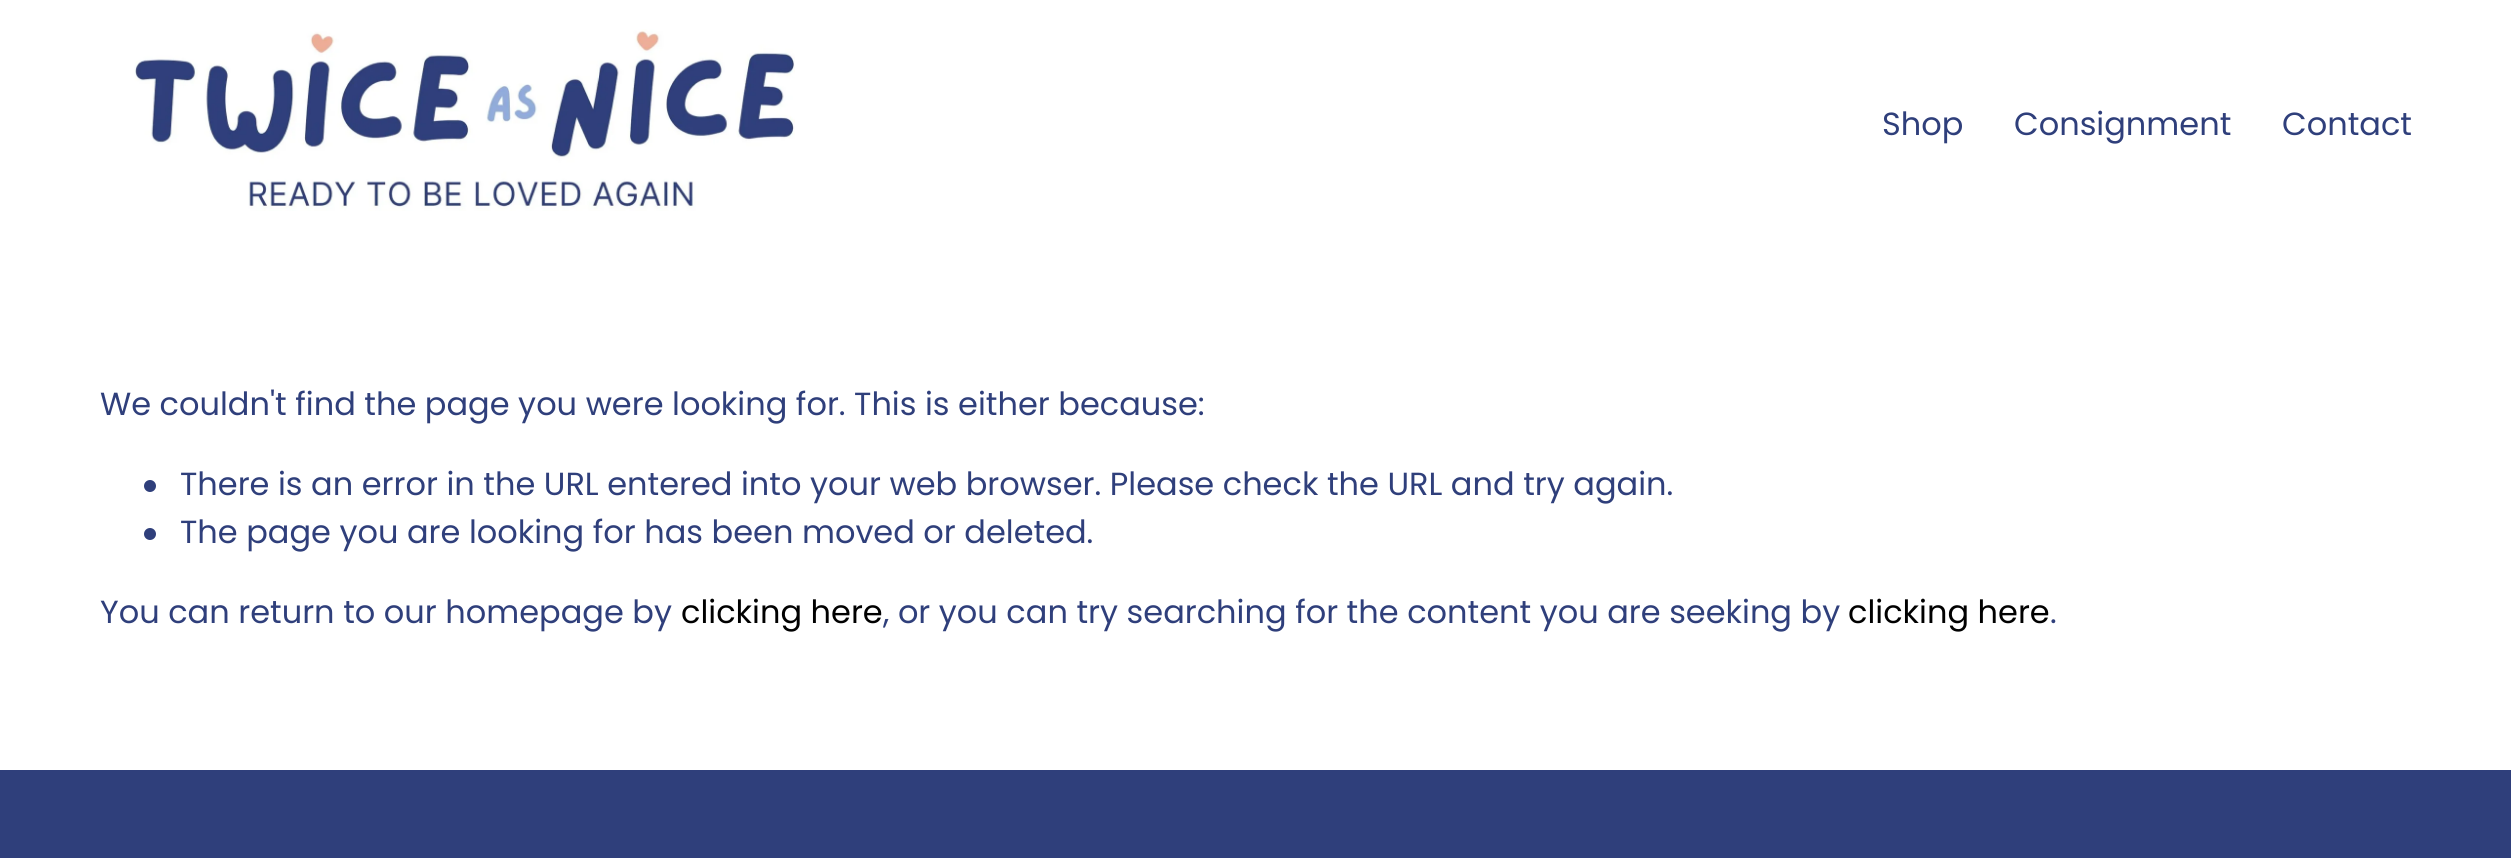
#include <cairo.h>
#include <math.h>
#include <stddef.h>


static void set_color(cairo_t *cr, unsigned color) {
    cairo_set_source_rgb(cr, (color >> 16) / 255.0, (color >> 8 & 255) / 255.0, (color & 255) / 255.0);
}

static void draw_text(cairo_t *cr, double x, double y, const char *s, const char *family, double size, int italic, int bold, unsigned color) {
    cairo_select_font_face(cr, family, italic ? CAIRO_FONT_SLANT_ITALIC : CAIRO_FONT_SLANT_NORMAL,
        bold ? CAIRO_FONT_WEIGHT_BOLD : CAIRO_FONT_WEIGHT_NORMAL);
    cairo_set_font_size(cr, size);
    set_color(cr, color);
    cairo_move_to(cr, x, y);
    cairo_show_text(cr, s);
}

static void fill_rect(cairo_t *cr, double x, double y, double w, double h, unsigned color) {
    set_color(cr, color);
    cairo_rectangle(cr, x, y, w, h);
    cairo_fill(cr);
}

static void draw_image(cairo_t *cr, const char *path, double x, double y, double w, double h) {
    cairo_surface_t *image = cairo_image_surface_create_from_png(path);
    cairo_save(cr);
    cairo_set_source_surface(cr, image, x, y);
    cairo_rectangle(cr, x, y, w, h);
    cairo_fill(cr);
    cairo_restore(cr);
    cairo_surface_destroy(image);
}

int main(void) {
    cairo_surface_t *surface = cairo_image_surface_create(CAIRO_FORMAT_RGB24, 2511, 858);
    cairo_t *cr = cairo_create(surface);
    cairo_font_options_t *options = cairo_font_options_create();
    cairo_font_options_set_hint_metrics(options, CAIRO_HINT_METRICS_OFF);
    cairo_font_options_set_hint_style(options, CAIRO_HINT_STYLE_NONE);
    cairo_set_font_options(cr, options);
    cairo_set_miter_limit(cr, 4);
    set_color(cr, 0xFFFFFF);
    cairo_paint(cr);
    draw_image(cr, "assets/img1.png", 134, 29, 661, 182);
    draw_text(cr, 1882, 135, "Shop", "Poppins", 32, 0, 0, 0x2F3F7B);
    draw_text(cr, 2014, 135, "Consignment", "Poppins", 32, 0, 0, 0x2F3F7B);
    draw_text(cr, 2282, 135, "Contact", "Poppins", 32, 0, 0, 0x2F3F7B);
    draw_text(cr, 100, 415, "We couldn't find the page you were looking for. This is either because:", "Poppins", 32, 0, 0, 0x2F3F7B);
    cairo_new_path(cr);
    cairo_arc(cr, 150, 486, 6, 0, 2 * M_PI);
    cairo_fill(cr);
    draw_text(cr, 180, 495, "There is an error in the URL entered into your web browser. Please check the URL and try again.", "Poppins", 32, 0, 0, 0x2F3F7B);
    cairo_new_path(cr);
    cairo_arc(cr, 150, 534, 6, 0, 2 * M_PI);
    cairo_fill(cr);
    draw_text(cr, 180, 543, "The page you are looking for has been moved or deleted.", "Poppins", 32, 0, 0, 0x2F3F7B);
    draw_text(cr, 100, 623, "You can return to our homepage by", "Poppins", 32, 0, 0, 0x2F3F7B);
    draw_text(cr, 681, 623, "clicking here", "Poppins", 32, 0, 0, 0x000000);
    draw_text(cr, 883, 623, ", or you can try searching for the content you are seeking by", "Poppins", 32, 0, 0, 0x2F3F7B);
    draw_text(cr, 1848, 623, "clicking here", "Poppins", 32, 0, 0, 0x000000);
    draw_text(cr, 2050, 623, ".", "Poppins", 32, 0, 0, 0x2F3F7B);
    fill_rect(cr, 0, 770, 2511, 88, 0x2F3F7B);
    cairo_surface_write_to_png(surface, "output.png");
    cairo_font_options_destroy(options);
    cairo_destroy(cr);
    cairo_surface_destroy(surface);
    return 0;
}
